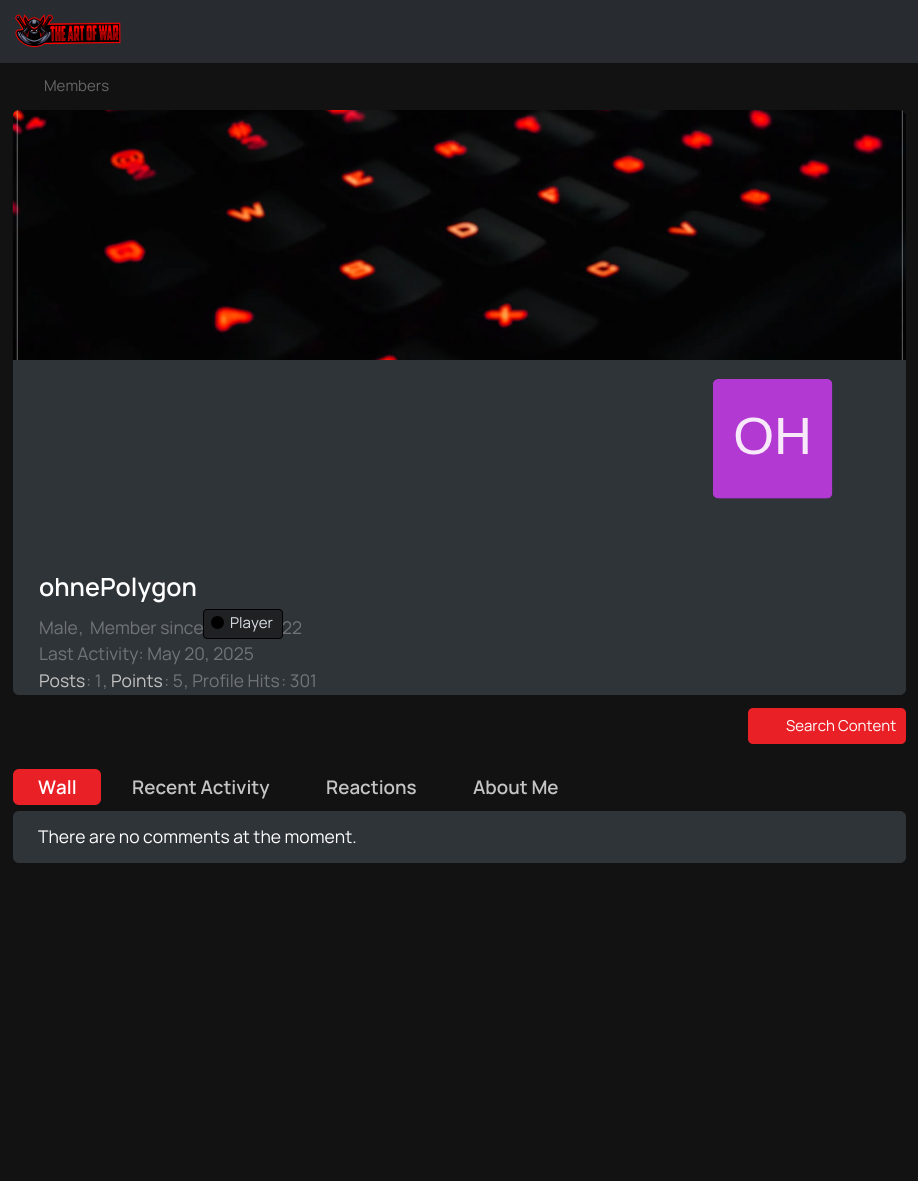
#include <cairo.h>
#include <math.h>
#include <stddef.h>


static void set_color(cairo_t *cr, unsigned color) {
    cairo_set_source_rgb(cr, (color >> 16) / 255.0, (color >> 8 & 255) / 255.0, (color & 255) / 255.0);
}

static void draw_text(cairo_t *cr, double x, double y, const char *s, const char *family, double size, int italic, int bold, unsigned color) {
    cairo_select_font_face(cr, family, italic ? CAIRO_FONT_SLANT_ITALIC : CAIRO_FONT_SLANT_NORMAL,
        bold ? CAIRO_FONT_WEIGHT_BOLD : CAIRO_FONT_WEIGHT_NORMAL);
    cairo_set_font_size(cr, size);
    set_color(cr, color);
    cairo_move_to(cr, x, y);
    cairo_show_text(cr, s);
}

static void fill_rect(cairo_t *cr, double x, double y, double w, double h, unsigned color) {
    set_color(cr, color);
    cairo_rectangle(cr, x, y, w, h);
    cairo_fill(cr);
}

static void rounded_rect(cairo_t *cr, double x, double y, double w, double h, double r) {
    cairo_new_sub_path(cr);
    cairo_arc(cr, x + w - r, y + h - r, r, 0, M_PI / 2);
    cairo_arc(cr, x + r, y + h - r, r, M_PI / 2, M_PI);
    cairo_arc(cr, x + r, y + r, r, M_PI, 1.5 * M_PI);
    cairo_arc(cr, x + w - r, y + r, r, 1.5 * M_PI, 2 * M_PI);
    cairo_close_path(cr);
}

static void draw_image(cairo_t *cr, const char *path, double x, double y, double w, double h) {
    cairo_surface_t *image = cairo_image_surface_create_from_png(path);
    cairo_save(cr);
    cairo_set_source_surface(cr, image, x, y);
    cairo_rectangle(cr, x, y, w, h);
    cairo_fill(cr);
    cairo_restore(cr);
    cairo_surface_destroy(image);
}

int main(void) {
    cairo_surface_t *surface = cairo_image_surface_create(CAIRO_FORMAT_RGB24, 918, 1181);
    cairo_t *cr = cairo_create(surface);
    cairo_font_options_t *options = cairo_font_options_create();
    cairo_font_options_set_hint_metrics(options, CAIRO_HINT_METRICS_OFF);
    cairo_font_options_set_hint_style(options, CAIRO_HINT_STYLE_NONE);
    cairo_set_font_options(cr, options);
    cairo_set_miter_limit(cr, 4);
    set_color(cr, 0x121212);
    cairo_paint(cr);
    fill_rect(cr, 0, 0, 918, 63, 0x282C30);
    draw_image(cr, "assets/img1.png", 15, 14, 106, 34);
    draw_text(cr, 44, 91, "Members", "Manrope", 15, 0, 0, 0x666666);
    set_color(cr, 0x2F3439);
    rounded_rect(cr, 13, 110, 893, 585, 6);
    cairo_fill(cr);
    draw_image(cr, "assets/img2.png", 12, 110, 894, 250);
    draw_image(cr, "assets/img3.png", 713, 379, 120, 120);
    draw_text(cr, 39, 596, "ohnePolygon", "Manrope SemiBold", 25, 0, 0, 0xFFFFFF);
    draw_text(cr, 282, 634, "22", "Manrope", 17.5, 0, 0, 0x71757A);
    cairo_set_source_rgba(cr, 0.102, 0.102, 0.102, 0.7);
    rounded_rect(cr, 203.5, 609.5, 79, 29, 3.5);
    cairo_fill_preserve(cr);
    set_color(cr, 0x000000);
    cairo_set_line_width(cr, 1);
    cairo_stroke(cr);
    cairo_arc(cr, 217.5, 622.5, 6.5, 0, 2 * M_PI);
    cairo_fill(cr);
    draw_text(cr, 230, 628, "Player", "Manrope", 15, 0, 0, 0xDAE1E8);
    draw_text(cr, 39, 634, "Male", "Manrope", 17.5, 0, 0, 0x71757A);
    draw_text(cr, 79, 634, ",", "Manrope", 17.5, 0, 0, 0x71757A);
    draw_text(cr, 90, 634, "Member since", "Manrope", 17.5, 0, 0, 0x71757A);
    draw_text(cr, 39, 660, "Last Activity: May 20, 2025", "Manrope", 17.5, 0, 0, 0x71757A);
    draw_text(cr, 39, 687, "Posts", "Manrope", 17.5, 0, 0, 0xC4C4C4);
    draw_text(cr, 86, 687, ": 1", "Manrope", 17.5, 0, 0, 0x71757A);
    draw_text(cr, 103, 687, ",", "Manrope", 17.5, 0, 0, 0x71757A);
    draw_text(cr, 111, 687, "Points", "Manrope", 17.5, 0, 0, 0xC4C4C4);
    draw_text(cr, 164, 687, ": 5", "Manrope", 17.5, 0, 0, 0x71757A);
    draw_text(cr, 184, 687, ", Profile Hits", "Manrope", 17.5, 0, 0, 0x71757A);
    draw_text(cr, 281, 687, ": 301", "Manrope", 17.5, 0, 0, 0x71757A);
    set_color(cr, 0xEA2027);
    rounded_rect(cr, 748, 708, 158, 36, 5);
    cairo_fill(cr);
    draw_text(cr, 786, 731, "Search Content", "Manrope", 15, 0, 0, 0xFFFFFF);
    set_color(cr, 0xEA2027);
    rounded_rect(cr, 13, 769, 88, 36, 6);
    cairo_fill(cr);
    draw_text(cr, 38, 794, "Wall", "Manrope SemiBold", 18.75, 0, 0, 0xFFFFFF);
    draw_text(cr, 132, 794, "Recent Activity", "Manrope SemiBold", 18.75, 0, 0, 0xC4C4C4);
    draw_text(cr, 326, 794, "Reactions", "Manrope SemiBold", 18.75, 0, 0, 0xC4C4C4);
    draw_text(cr, 473, 794, "About Me", "Manrope SemiBold", 18.75, 0, 0, 0xC4C4C4);
    set_color(cr, 0x2F3439);
    rounded_rect(cr, 13, 811, 893, 52, 6);
    cairo_fill(cr);
    draw_text(cr, 38, 843, "There are no comments at the moment.", "Manrope", 17.5, 0, 0, 0xFFFFFF);
    cairo_surface_write_to_png(surface, "output.png");
    cairo_font_options_destroy(options);
    cairo_destroy(cr);
    cairo_surface_destroy(surface);
    return 0;
}
